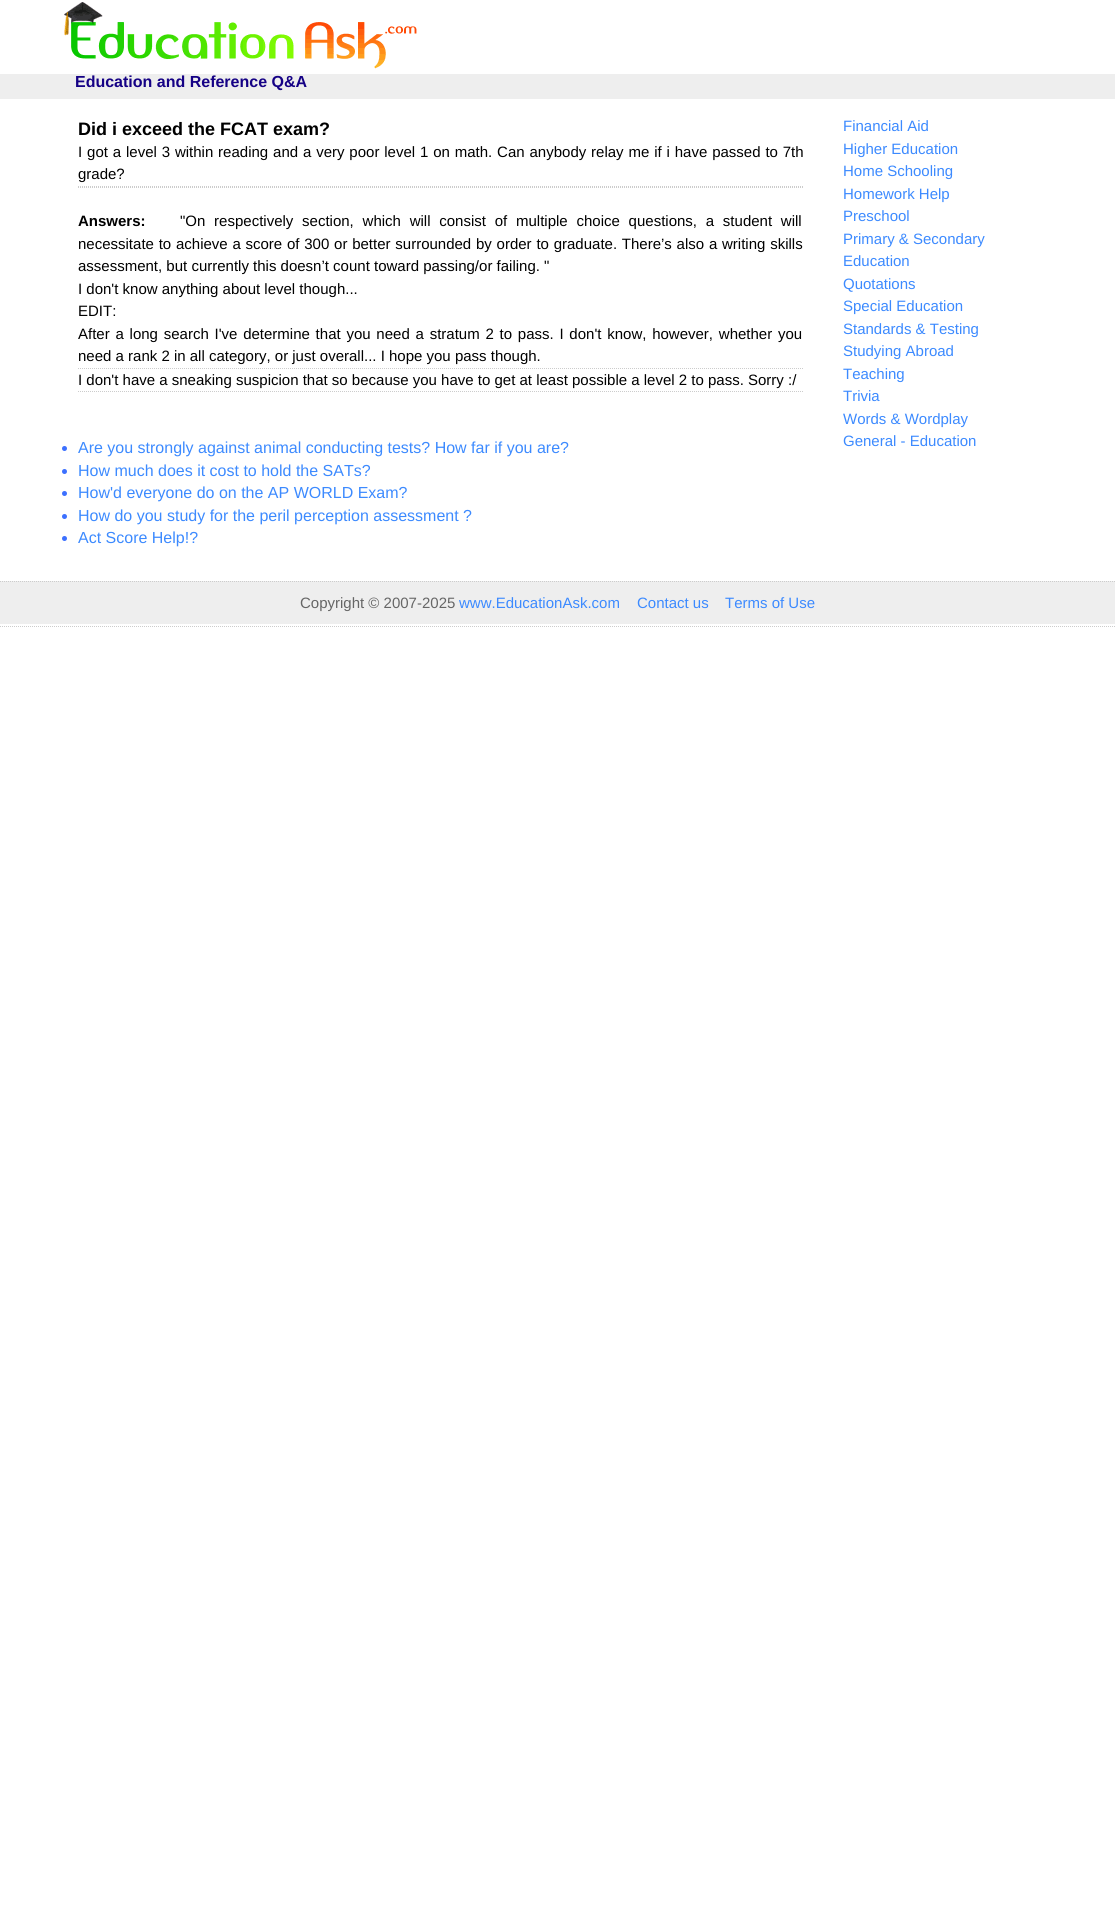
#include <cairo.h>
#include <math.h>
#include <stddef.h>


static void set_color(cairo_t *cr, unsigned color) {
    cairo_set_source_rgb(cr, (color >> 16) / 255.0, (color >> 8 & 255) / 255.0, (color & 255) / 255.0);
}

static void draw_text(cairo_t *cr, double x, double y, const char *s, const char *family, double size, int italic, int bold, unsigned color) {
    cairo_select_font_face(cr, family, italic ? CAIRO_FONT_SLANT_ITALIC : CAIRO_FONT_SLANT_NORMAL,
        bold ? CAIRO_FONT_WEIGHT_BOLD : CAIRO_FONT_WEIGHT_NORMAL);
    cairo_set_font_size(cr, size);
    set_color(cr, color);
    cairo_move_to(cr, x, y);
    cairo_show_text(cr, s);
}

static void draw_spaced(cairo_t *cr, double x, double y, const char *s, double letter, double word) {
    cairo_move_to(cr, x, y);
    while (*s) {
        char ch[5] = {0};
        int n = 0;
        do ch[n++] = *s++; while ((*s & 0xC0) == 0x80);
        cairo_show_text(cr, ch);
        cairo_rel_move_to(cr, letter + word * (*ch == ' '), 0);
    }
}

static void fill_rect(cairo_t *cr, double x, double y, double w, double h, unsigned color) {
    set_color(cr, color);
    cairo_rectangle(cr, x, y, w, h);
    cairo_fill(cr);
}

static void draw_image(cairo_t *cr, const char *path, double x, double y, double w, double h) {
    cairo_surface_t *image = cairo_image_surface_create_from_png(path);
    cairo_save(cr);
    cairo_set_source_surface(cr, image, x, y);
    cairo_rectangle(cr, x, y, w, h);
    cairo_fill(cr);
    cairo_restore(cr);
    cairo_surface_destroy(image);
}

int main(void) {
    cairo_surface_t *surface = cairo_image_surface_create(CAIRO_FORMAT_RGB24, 1115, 1930);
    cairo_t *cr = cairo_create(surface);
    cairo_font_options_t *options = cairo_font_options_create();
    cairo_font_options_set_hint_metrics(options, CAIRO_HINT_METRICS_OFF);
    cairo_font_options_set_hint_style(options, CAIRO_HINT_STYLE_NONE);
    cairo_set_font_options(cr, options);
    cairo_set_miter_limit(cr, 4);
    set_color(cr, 0xFFFFFF);
    cairo_paint(cr);
    fill_rect(cr, 0, 74, 1115, 25, 0xEEEEEE);
    draw_image(cr, "assets/img1.png", 64, 2, 353, 67);
    draw_text(cr, 75, 87, "Education and Reference Q&A", "Liberation Sans", 16, 0, 1, 0x150185);
    draw_text(cr, 78, 135, "Did i exceed the FCAT exam?", "Liberation Sans", 18, 0, 1, 0x000000);
    cairo_select_font_face(cr, "Liberation Sans", CAIRO_FONT_SLANT_NORMAL, CAIRO_FONT_WEIGHT_NORMAL);
    cairo_set_font_size(cr, 15);
    draw_spaced(cr, 78, 157, "I got a level 3 within reading and a very poor level 1 on math. Can anybody relay me if i have passed to 7th", 0, 0.7);
    draw_text(cr, 78, 179, "grade?", "Liberation Sans", 15, 0, 0, 0x000000);
    cairo_new_path(cr);
    cairo_move_to(cr, 78, 186.5);
    cairo_line_to(cr, 803, 186.5);
    set_color(cr, 0xCCCCCC);
    cairo_set_line_width(cr, 1);
    cairo_set_dash(cr, (double[]){1, 1}, 2, 0);
    cairo_stroke(cr);
    cairo_new_path(cr);
    cairo_move_to(cr, 78, 187.5);
    cairo_line_to(cr, 803, 187.5);
    cairo_stroke(cr);
    draw_text(cr, 78, 226, "Answers:", "Liberation Sans", 15, 0, 1, 0x000000);
    cairo_select_font_face(cr, "Liberation Sans", CAIRO_FONT_SLANT_NORMAL, CAIRO_FONT_WEIGHT_NORMAL);
    draw_spaced(cr, 180, 226, "\"On respectively section, which will consist of multiple choice questions, a student will", 0, 4.6);
    draw_spaced(cr, 78, 249, "necessitate to achieve a score of 300 or better surrounded by order to graduate. There’s also a writing skills", 0, 0.6);
    draw_text(cr, 78, 271, "assessment, but currently this doesn’t count toward passing/or failing. \"", "Liberation Sans", 15, 0, 0, 0x000000);
    draw_text(cr, 78, 294, "I don't know anything about level though...", "Liberation Sans", 15, 0, 0, 0x000000);
    draw_text(cr, 78, 316, "EDIT:", "Liberation Sans", 15, 0, 0, 0x000000);
    draw_spaced(cr, 78, 339, "After a long search I've determine that you need a stratum 2 to pass. I don't know, however, whether you", 0, 1.6);
    draw_text(cr, 78, 361, "need a rank 2 in all category, or just overall... I hope you pass though.", "Liberation Sans", 15, 0, 0, 0x000000);
    cairo_new_path(cr);
    cairo_move_to(cr, 78, 368.5);
    cairo_line_to(cr, 803, 368.5);
    set_color(cr, 0xCCCCCC);
    cairo_stroke(cr);
    draw_text(cr, 78, 385, "I don't have a sneaking suspicion that so because you have to get at least possible a level 2 to pass. Sorry :/", "Liberation Sans", 15, 0, 0, 0x000000);
    cairo_new_path(cr);
    cairo_move_to(cr, 78, 391.5);
    cairo_line_to(cr, 803, 391.5);
    set_color(cr, 0xCCCCCC);
    cairo_stroke(cr);
    set_color(cr, 0x3C70FF);
    cairo_arc(cr, 64.5, 448.5, 2.5, 0, 2 * M_PI);
    cairo_fill(cr);
    draw_text(cr, 78, 453, "Are you strongly against animal conducting tests? How far if you are?", "Liberation Sans", 16, 0, 0, 0x3C8AFF);
    set_color(cr, 0x3C70FF);
    cairo_new_path(cr);
    cairo_arc(cr, 64.5, 471.5, 2.5, 0, 2 * M_PI);
    cairo_fill(cr);
    draw_text(cr, 78, 476, "How much does it cost to hold the SATs?", "Liberation Sans", 16, 0, 0, 0x3C8AFF);
    set_color(cr, 0x3C70FF);
    cairo_new_path(cr);
    cairo_arc(cr, 64.5, 493.5, 2.5, 0, 2 * M_PI);
    cairo_fill(cr);
    draw_text(cr, 78, 498, "How'd everyone do on the AP WORLD Exam?", "Liberation Sans", 16, 0, 0, 0x3C8AFF);
    set_color(cr, 0x3C70FF);
    cairo_new_path(cr);
    cairo_arc(cr, 64.5, 516.5, 2.5, 0, 2 * M_PI);
    cairo_fill(cr);
    draw_text(cr, 78, 521, "How do you study for the peril perception assessment ?", "Liberation Sans", 16, 0, 0, 0x3C8AFF);
    set_color(cr, 0x3C70FF);
    cairo_new_path(cr);
    cairo_arc(cr, 64.5, 538.5, 2.5, 0, 2 * M_PI);
    cairo_fill(cr);
    draw_text(cr, 78, 543, "Act Score Help!?", "Liberation Sans", 16, 0, 0, 0x3C8AFF);
    draw_text(cr, 843, 131, "Financial Aid", "Liberation Sans", 15, 0, 0, 0x3C8AFF);
    draw_text(cr, 843, 154, "Higher Education", "Liberation Sans", 15, 0, 0, 0x3C8AFF);
    draw_text(cr, 843, 176, "Home Schooling", "Liberation Sans", 15, 0, 0, 0x3C8AFF);
    draw_text(cr, 843, 199, "Homework Help", "Liberation Sans", 15, 0, 0, 0x3C8AFF);
    draw_text(cr, 843, 221, "Preschool", "Liberation Sans", 15, 0, 0, 0x3C8AFF);
    draw_text(cr, 843, 244, "Primary & Secondary", "Liberation Sans", 15, 0, 0, 0x3C8AFF);
    draw_text(cr, 843, 266, "Education", "Liberation Sans", 15, 0, 0, 0x3C8AFF);
    draw_text(cr, 843, 289, "Quotations", "Liberation Sans", 15, 0, 0, 0x3C8AFF);
    draw_text(cr, 843, 311, "Special Education", "Liberation Sans", 15, 0, 0, 0x3C8AFF);
    draw_text(cr, 843, 334, "Standards & Testing", "Liberation Sans", 15, 0, 0, 0x3C8AFF);
    draw_text(cr, 843, 356, "Studying Abroad", "Liberation Sans", 15, 0, 0, 0x3C8AFF);
    draw_text(cr, 843, 379, "Teaching", "Liberation Sans", 15, 0, 0, 0x3C8AFF);
    draw_text(cr, 843, 401, "Trivia", "Liberation Sans", 15, 0, 0, 0x3C8AFF);
    draw_text(cr, 843, 424, "Words & Wordplay", "Liberation Sans", 15, 0, 0, 0x3C8AFF);
    draw_text(cr, 843, 446, "General - Education", "Liberation Sans", 15, 0, 0, 0x3C8AFF);
    fill_rect(cr, 0, 581, 1115, 43, 0xEEEEEE);
    cairo_new_path(cr);
    cairo_move_to(cr, 0, 581.5);
    cairo_line_to(cr, 1115, 581.5);
    set_color(cr, 0xCCCCCC);
    cairo_stroke(cr);
    draw_text(cr, 300, 608, "Copyright © 2007-2025", "Liberation Sans", 15, 0, 0, 0x666666);
    draw_text(cr, 459, 608, "www.EducationAsk.com", "Liberation Sans", 15, 0, 0, 0x3C8AFF);
    draw_text(cr, 637, 608, "Contact us", "Liberation Sans", 15, 0, 0, 0x3C8AFF);
    draw_text(cr, 725, 608, "Terms of Use", "Liberation Sans", 15, 0, 0, 0x3C8AFF);
    cairo_new_path(cr);
    cairo_move_to(cr, 0, 626.5);
    cairo_line_to(cr, 1115, 626.5);
    set_color(cr, 0xCCCCCC);
    cairo_stroke(cr);
    cairo_surface_write_to_png(surface, "output.png");
    cairo_font_options_destroy(options);
    cairo_destroy(cr);
    cairo_surface_destroy(surface);
    return 0;
}
